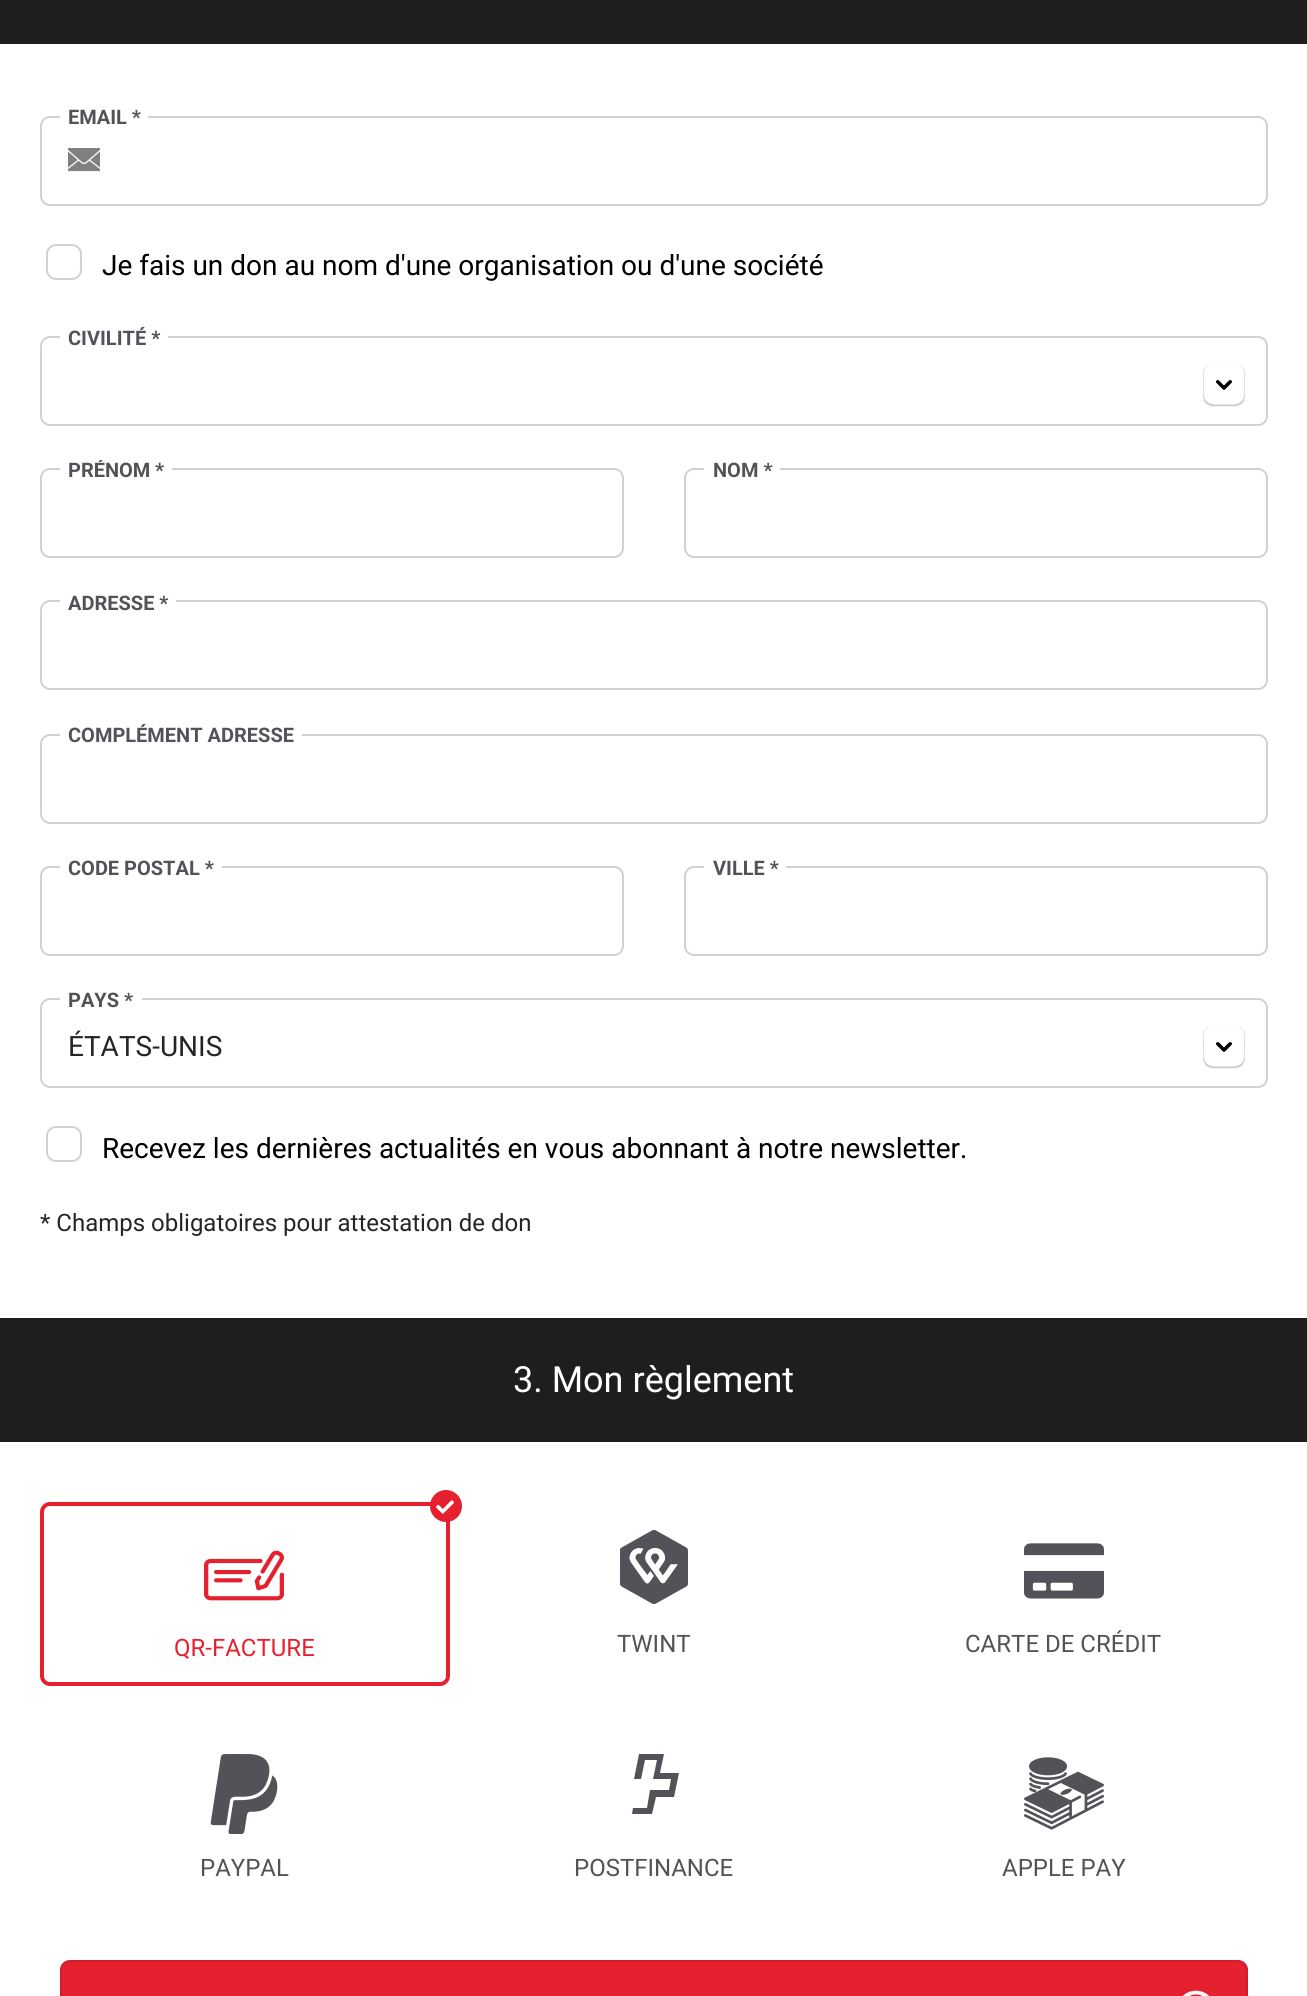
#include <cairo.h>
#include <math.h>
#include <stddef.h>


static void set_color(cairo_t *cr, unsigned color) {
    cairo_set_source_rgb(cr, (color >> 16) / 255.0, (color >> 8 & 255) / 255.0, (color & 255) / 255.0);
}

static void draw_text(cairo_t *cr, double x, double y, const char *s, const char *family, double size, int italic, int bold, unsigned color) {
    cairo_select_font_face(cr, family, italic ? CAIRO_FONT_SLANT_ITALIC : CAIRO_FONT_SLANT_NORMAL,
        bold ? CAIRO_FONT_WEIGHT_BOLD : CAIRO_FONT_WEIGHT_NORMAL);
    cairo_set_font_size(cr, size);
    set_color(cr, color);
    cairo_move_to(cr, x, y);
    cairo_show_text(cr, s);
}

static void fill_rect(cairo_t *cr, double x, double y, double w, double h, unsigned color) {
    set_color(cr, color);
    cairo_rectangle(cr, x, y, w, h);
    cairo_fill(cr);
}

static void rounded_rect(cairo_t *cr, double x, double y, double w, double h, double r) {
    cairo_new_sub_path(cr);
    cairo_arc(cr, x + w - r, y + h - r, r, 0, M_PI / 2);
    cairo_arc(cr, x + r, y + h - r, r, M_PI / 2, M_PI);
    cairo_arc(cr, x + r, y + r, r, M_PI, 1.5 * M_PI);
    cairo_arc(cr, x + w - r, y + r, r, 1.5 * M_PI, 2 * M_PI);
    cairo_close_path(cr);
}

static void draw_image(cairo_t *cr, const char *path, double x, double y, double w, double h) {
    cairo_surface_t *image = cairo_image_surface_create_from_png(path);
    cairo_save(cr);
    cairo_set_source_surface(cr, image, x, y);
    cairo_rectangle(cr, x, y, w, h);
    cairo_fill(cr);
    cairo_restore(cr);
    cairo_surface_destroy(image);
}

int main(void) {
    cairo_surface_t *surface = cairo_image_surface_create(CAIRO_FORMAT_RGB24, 1307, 1996);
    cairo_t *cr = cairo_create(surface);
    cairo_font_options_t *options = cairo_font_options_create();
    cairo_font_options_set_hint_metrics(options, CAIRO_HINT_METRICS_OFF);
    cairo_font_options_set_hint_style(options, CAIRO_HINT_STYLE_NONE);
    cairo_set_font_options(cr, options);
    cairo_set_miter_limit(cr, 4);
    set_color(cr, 0xFFFFFF);
    cairo_paint(cr);
    fill_rect(cr, 0, 0, 1307, 44, 0x1E1E1E);
    rounded_rect(cr, 41, 117, 1226, 88, 9);
    set_color(cr, 0xD1D1D1);
    cairo_stroke(cr);
    set_color(cr, 0xFFFFFF);
    rounded_rect(cr, 60, 106, 88, 24, 10);
    cairo_fill(cr);
    draw_text(cr, 68, 124, "EMAIL *", "Roboto", 20, 0, 1, 0x515358);
    draw_image(cr, "assets/img1.png", 68, 148, 32, 24);
    rounded_rect(cr, 47, 245, 34, 34, 9);
    set_color(cr, 0xD1D1D1);
    cairo_stroke(cr);
    draw_text(cr, 102, 275, "Je fais un don au nom d'une organisation ou d'une société", "Roboto", 28, 0, 0, 0x000000);
    rounded_rect(cr, 41, 337, 1226, 88, 9);
    set_color(cr, 0xD1D1D1);
    cairo_stroke(cr);
    set_color(cr, 0xFFFFFF);
    rounded_rect(cr, 60, 326, 108, 26, 10);
    cairo_fill(cr);
    draw_text(cr, 68, 345, "CIVILITÉ *", "Roboto", 20, 0, 1, 0x515358);
    draw_image(cr, "assets/img2.png", 1203, 363, 42, 44);
    rounded_rect(cr, 41, 469, 582, 88, 9);
    set_color(cr, 0xD1D1D1);
    cairo_stroke(cr);
    set_color(cr, 0xFFFFFF);
    rounded_rect(cr, 60, 460, 112, 24, 10);
    cairo_fill(cr);
    cairo_save(cr);
    rounded_rect(cr, 60, 460, 112, 24, 10);
    cairo_clip(cr);
    draw_text(cr, 68, 477, "PRÉNOM", "Roboto", 20, 0, 1, 0x515358);
    cairo_restore(cr);
    draw_text(cr, 155, 477, "*", "Roboto", 20, 0, 1, 0x515358);
    rounded_rect(cr, 685, 469, 582, 88, 9);
    set_color(cr, 0xD1D1D1);
    cairo_stroke(cr);
    set_color(cr, 0xFFFFFF);
    rounded_rect(cr, 704, 460, 76, 24, 10);
    cairo_fill(cr);
    draw_text(cr, 713, 477, "NOM *", "Roboto", 20, 0, 1, 0x515358);
    rounded_rect(cr, 41, 601, 1226, 88, 9);
    set_color(cr, 0xD1D1D1);
    cairo_stroke(cr);
    set_color(cr, 0xFFFFFF);
    rounded_rect(cr, 60, 592, 116, 24, 10);
    cairo_fill(cr);
    draw_text(cr, 68, 610, "ADRESSE *", "Roboto", 20, 0, 1, 0x515358);
    rounded_rect(cr, 41, 735, 1226, 88, 9);
    set_color(cr, 0xD1D1D1);
    cairo_stroke(cr);
    set_color(cr, 0xFFFFFF);
    rounded_rect(cr, 60, 724, 242, 24, 10);
    cairo_fill(cr);
    cairo_save(cr);
    rounded_rect(cr, 60, 724, 242, 24, 10);
    cairo_clip(cr);
    draw_text(cr, 68, 742, "COMPLÉMENT ADRESSE", "Roboto", 20, 0, 1, 0x515358);
    cairo_restore(cr);
    rounded_rect(cr, 41, 867, 582, 88, 9);
    set_color(cr, 0xD1D1D1);
    cairo_stroke(cr);
    set_color(cr, 0xFFFFFF);
    rounded_rect(cr, 60, 856, 162, 26, 10);
    cairo_fill(cr);
    draw_text(cr, 68, 875, "CODE POSTAL *", "Roboto", 20, 0, 1, 0x515358);
    rounded_rect(cr, 685, 867, 582, 88, 9);
    set_color(cr, 0xD1D1D1);
    cairo_stroke(cr);
    set_color(cr, 0xFFFFFF);
    rounded_rect(cr, 704, 856, 82, 26, 10);
    cairo_fill(cr);
    draw_text(cr, 713, 875, "VILLE *", "Roboto", 20, 0, 1, 0x515358);
    rounded_rect(cr, 41, 999, 1226, 88, 9);
    set_color(cr, 0xD1D1D1);
    cairo_stroke(cr);
    set_color(cr, 0xFFFFFF);
    rounded_rect(cr, 60, 990, 82, 24, 10);
    cairo_fill(cr);
    draw_text(cr, 68, 1007, "PAYS *", "Roboto", 20, 0, 1, 0x515358);
    draw_text(cr, 68, 1056, "ÉTATS-UNIS", "Roboto", 28, 0, 0, 0x252525);
    draw_image(cr, "assets/img3.png", 1203, 1025, 42, 44);
    rounded_rect(cr, 47, 1127, 34, 34, 9);
    set_color(cr, 0xD1D1D1);
    cairo_stroke(cr);
    draw_text(cr, 102, 1158, "Recevez les dernières actualités en vous abonnant à notre newsletter.", "Roboto", 28, 0, 0, 0x000000);
    draw_text(cr, 40, 1231, "* Champs obligatoires pour attestation de don", "Roboto", 24, 0, 0, 0x252525);
    fill_rect(cr, 0, 1318, 1307, 124, 0x1E1E1E);
    draw_text(cr, 513, 1392, "3. Mon règlement", "Roboto", 36, 0, 0, 0xFFFFFF);
    rounded_rect(cr, 42, 1504, 406, 180, 8);
    set_color(cr, 0xE5212F);
    cairo_set_line_width(cr, 4);
    cairo_stroke(cr);
    cairo_arc(cr, 446, 1506, 16, 0, 2 * M_PI);
    cairo_fill(cr);
    draw_image(cr, "assets/img4.png", 436, 1500, 18, 14);
    draw_image(cr, "assets/img5.png", 204, 1550, 80, 51);
    draw_text(cr, 174, 1656, "QR-FACTURE", "Roboto", 24, 0, 0, 0xE5212F);
    draw_image(cr, "assets/img6.png", 620, 1530, 68, 74);
    draw_text(cr, 617, 1652, "TWINT", "Roboto", 24, 0, 0, 0x515358);
    draw_image(cr, "assets/img7.png", 1024, 1543, 80, 56);
    draw_text(cr, 965, 1652, "CARTE DE CRÉDIT", "Roboto", 24, 0, 0, 0x515358);
    draw_image(cr, "assets/img8.png", 210, 1754, 68, 80);
    draw_text(cr, 200, 1876, "PAYPAL", "Roboto", 24, 0, 0, 0x515358);
    cairo_set_fill_rule(cr, CAIRO_FILL_RULE_EVEN_ODD);
    cairo_new_path(cr);
    cairo_move_to(cr, 660, 1773);
    cairo_line_to(cr, 664, 1754);
    cairo_line_to(cr, 639, 1754);
    cairo_line_to(cr, 634, 1779);
    cairo_line_to(cr, 641, 1779);
    cairo_line_to(cr, 645, 1760);
    cairo_line_to(cr, 657, 1760);
    cairo_line_to(cr, 653, 1779);
    cairo_line_to(cr, 671, 1779);
    cairo_line_to(cr, 669, 1790);
    cairo_line_to(cr, 650, 1790);
    cairo_line_to(cr, 647, 1808);
    cairo_line_to(cr, 633, 1808);
    cairo_line_to(cr, 632, 1814);
    cairo_line_to(cr, 652, 1814);
    cairo_line_to(cr, 656, 1797);
    cairo_line_to(cr, 674, 1797);
    cairo_line_to(cr, 679, 1773);
    cairo_line_to(cr, 660, 1773);
    cairo_fill(cr);
    draw_text(cr, 574, 1876, "POSTFINANCE", "Roboto", 24, 0, 0, 0x515358);
    draw_image(cr, "assets/img9.png", 1024, 1757, 80, 73);
    draw_text(cr, 1002, 1876, "APPLE PAY", "Roboto", 24, 0, 0, 0x515358);
    set_color(cr, 0xE5212F);
    rounded_rect(cr, 60, 1960, 1188, 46, 10);
    cairo_fill(cr);
    draw_image(cr, "assets/img10.png", 1183, 1990, 26, 6);
    rounded_rect(cr, 61, 1961, 1186, 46, 9);
    cairo_set_source_rgba(cr, 0, 0, 0, 0.1);
    cairo_set_line_width(cr, 2);
    cairo_stroke(cr);
    cairo_surface_write_to_png(surface, "output.png");
    cairo_font_options_destroy(options);
    cairo_destroy(cr);
    cairo_surface_destroy(surface);
    return 0;
}
